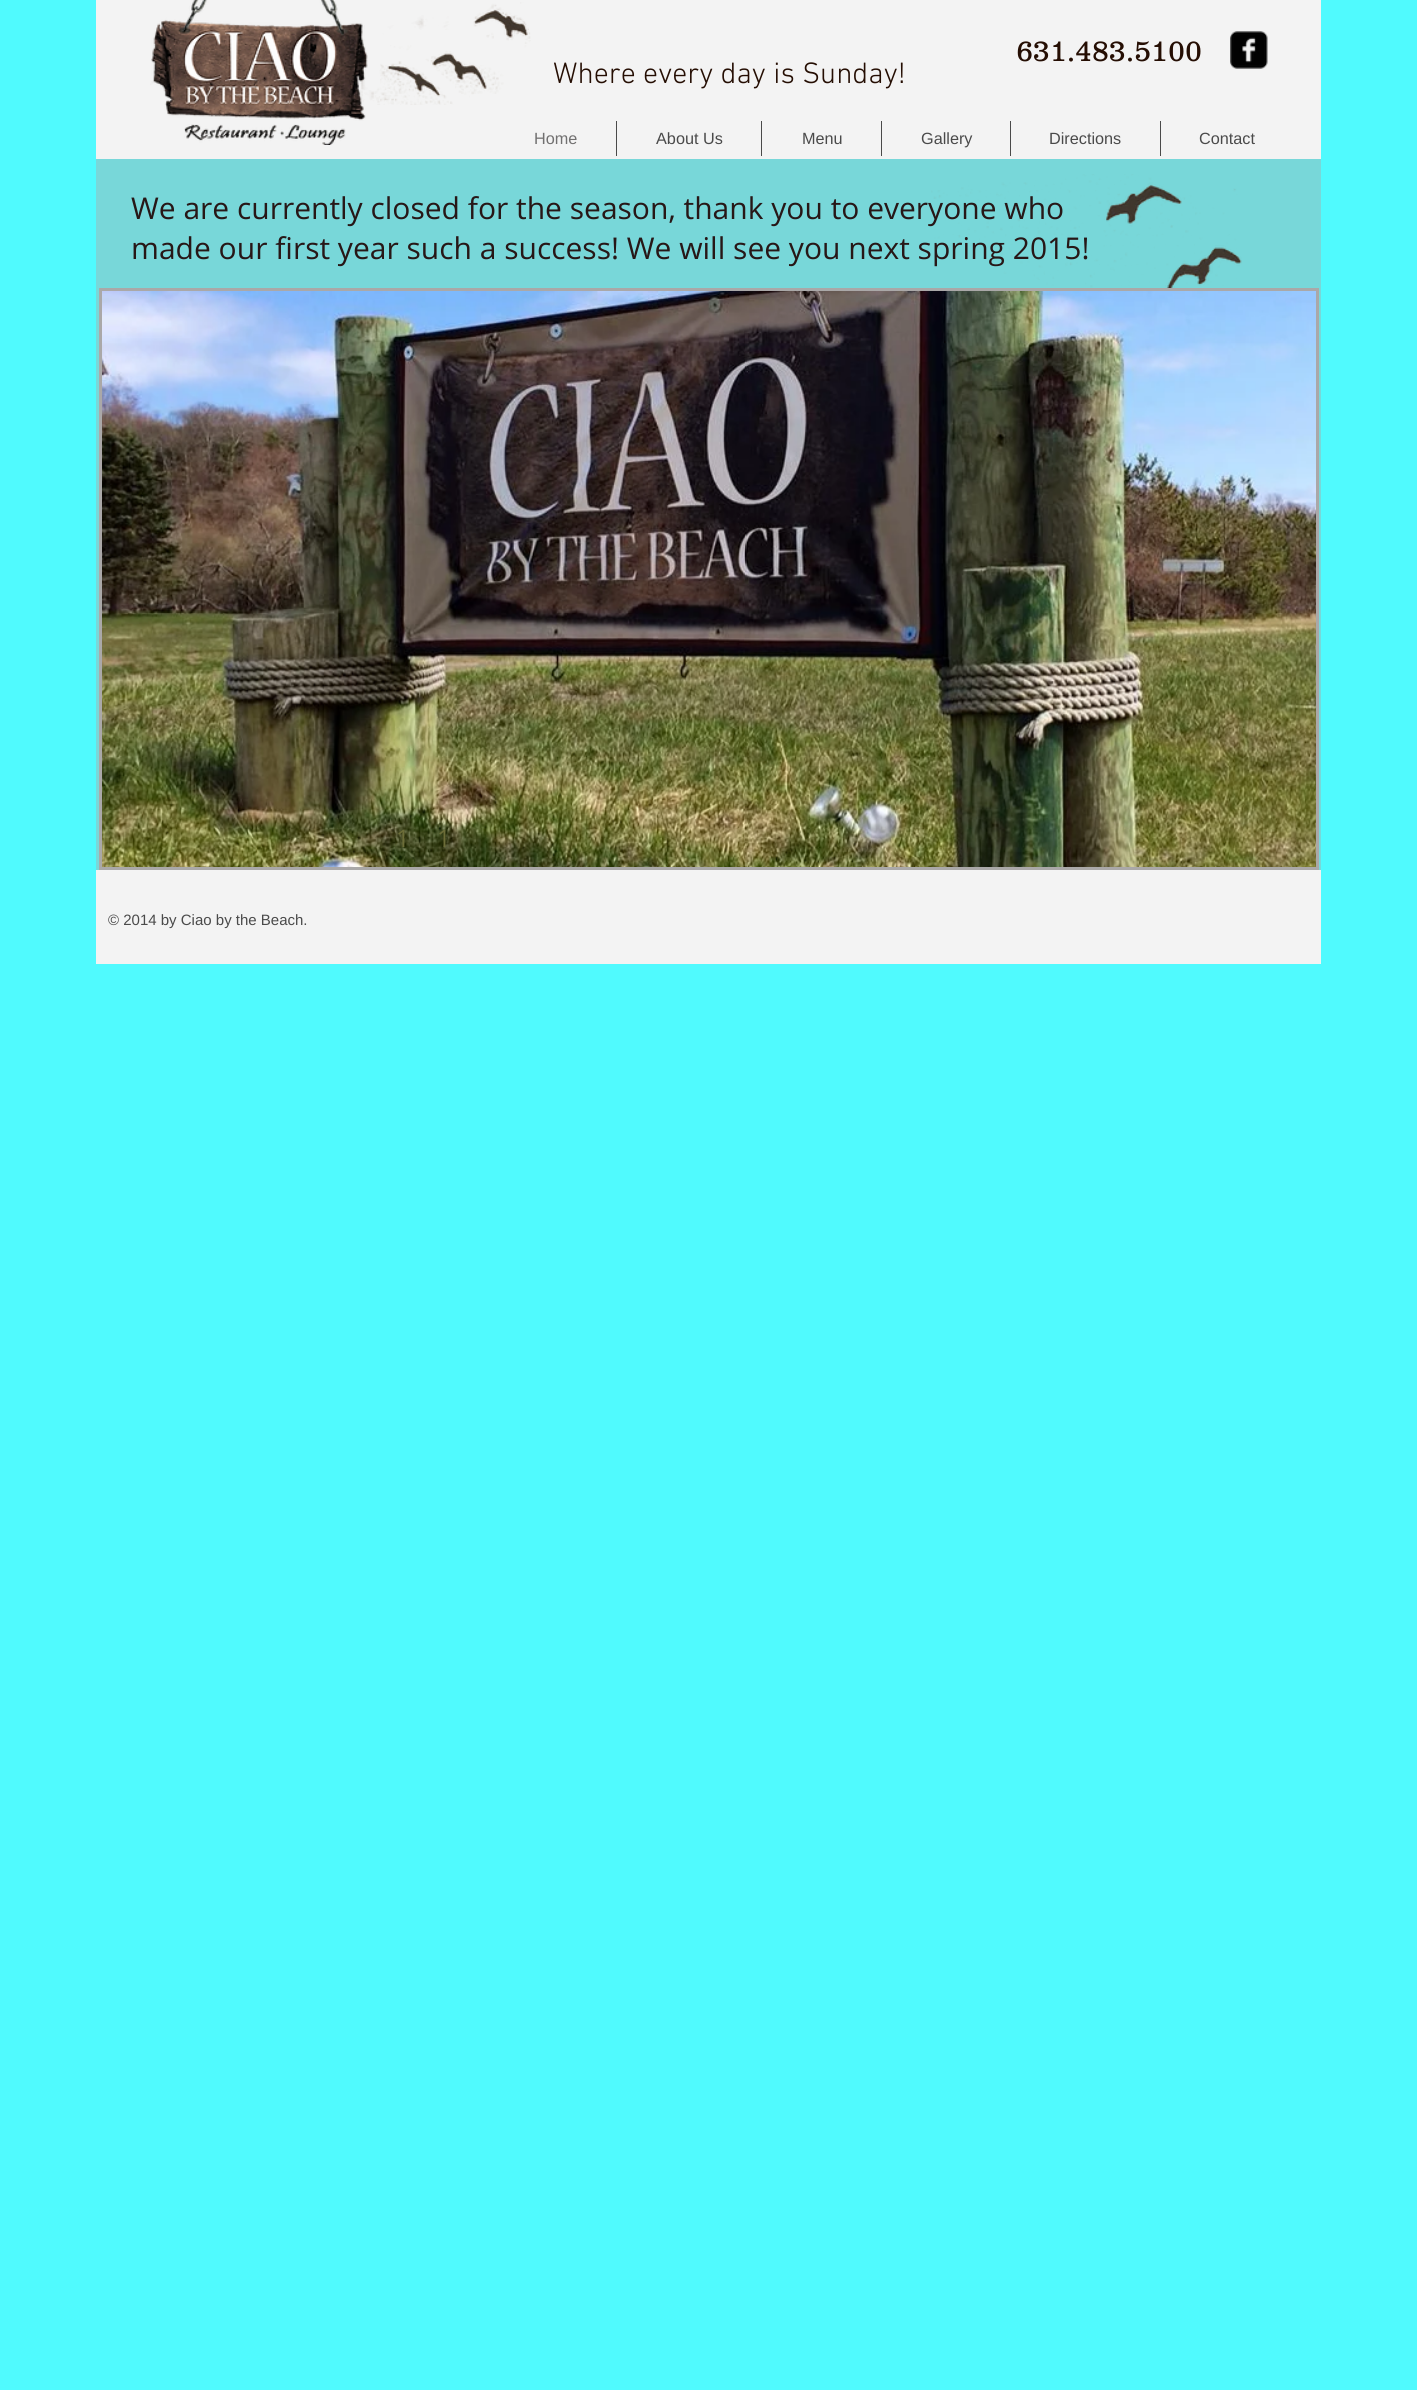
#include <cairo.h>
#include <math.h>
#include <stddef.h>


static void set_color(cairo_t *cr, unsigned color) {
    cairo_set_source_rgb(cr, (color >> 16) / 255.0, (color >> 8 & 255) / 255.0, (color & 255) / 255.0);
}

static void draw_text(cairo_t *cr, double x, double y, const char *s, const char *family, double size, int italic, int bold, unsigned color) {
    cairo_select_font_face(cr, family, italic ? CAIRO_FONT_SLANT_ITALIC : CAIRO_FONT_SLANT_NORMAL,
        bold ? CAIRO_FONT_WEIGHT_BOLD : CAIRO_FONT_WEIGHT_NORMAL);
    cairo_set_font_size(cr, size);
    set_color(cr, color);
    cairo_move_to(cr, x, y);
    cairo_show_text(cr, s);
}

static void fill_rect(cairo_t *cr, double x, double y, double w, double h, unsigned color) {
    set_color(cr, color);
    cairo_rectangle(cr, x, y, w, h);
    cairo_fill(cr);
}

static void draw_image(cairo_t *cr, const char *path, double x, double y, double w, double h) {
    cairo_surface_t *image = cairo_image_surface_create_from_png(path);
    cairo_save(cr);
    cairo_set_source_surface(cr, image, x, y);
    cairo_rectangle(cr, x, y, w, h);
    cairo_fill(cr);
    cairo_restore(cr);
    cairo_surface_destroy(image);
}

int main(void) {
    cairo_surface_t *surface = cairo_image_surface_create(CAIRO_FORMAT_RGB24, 1417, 2390);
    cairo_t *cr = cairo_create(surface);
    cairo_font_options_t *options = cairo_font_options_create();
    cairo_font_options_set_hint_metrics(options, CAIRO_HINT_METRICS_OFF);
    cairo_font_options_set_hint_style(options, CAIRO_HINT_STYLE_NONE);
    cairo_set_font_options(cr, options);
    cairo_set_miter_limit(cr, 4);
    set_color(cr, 0x50FAFE);
    cairo_paint(cr);
    fill_rect(cr, 96, 0, 1225, 159, 0xF3F3F3);
    draw_image(cr, "assets/img2.png", 361, 2, 170, 103);
    draw_image(cr, "assets/img1.png", 150, 0, 218, 121);
    draw_text(cr, 1016, 61, "631.483.5100", "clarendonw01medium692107 Light", 30, 0, 0, 0x250E03);
    draw_image(cr, "assets/img3.png", 1230, 31, 38, 38);
    draw_text(cr, 553, 83, "Where every day is Sunday!", "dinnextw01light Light", 30, 0, 0, 0x250E03);
    draw_image(cr, "assets/img4.png", 184, 124, 162, 21);
    draw_text(cr, 534, 144, "Home", "Liberation Sans", 16.25, 0, 0, 0x717070);
    fill_rect(cr, 616, 121, 1, 35, 0x4A4A4A);
    draw_text(cr, 656, 144, "About Us", "Liberation Sans", 16.25, 0, 0, 0x4A4A4A);
    fill_rect(cr, 761, 121, 1, 35, 0x4A4A4A);
    draw_text(cr, 802, 144, "Menu", "Liberation Sans", 16.25, 0, 0, 0x4A4A4A);
    fill_rect(cr, 881, 121, 1, 35, 0x4A4A4A);
    draw_text(cr, 921, 144, "Gallery", "Liberation Sans", 16.25, 0, 0, 0x4A4A4A);
    fill_rect(cr, 1010, 121, 1, 35, 0x4A4A4A);
    draw_text(cr, 1049, 144, "Directions", "Liberation Sans", 16.25, 0, 0, 0x4A4A4A);
    fill_rect(cr, 1160, 121, 1, 35, 0x4A4A4A);
    draw_text(cr, 1199, 144, "Contact", "Liberation Sans", 16.25, 0, 0, 0x4A4A4A);
    fill_rect(cr, 96, 159, 1225, 711, 0x78D7D9);
    draw_image(cr, "assets/img5.png", 931, 174, 311, 114);
    draw_text(cr, 131, 219, "We are currently closed for the season, thank you to everyone who", "Open Sans", 30, 0, 0, 0x271717);
    draw_text(cr, 131, 259, "made our first year such a success! We will see you next spring 2015!", "Open Sans", 30, 0, 0, 0x271717);
    draw_image(cr, "assets/img6.png", 102, 291, 1214, 576);
    cairo_rectangle(cr, 100.5, 289.5, 1217, 579);
    set_color(cr, 0xAAA8A8);
    cairo_set_line_width(cr, 3);
    cairo_stroke(cr);
    draw_text(cr, 396, 847, "1", "Open Sans", 24, 0, 0, 0x6C6D38);
    draw_text(cr, 437, 847, "1", "Open Sans", 24, 0, 0, 0x6C6D38);
    fill_rect(cr, 96, 870, 1225, 94, 0xF3F3F3);
    draw_text(cr, 108, 925, "© 2014 by Ciao by the Beach.", "Liberation Sans", 15, 0, 0, 0x4A4A4A);
    cairo_surface_write_to_png(surface, "output.png");
    cairo_font_options_destroy(options);
    cairo_destroy(cr);
    cairo_surface_destroy(surface);
    return 0;
}
